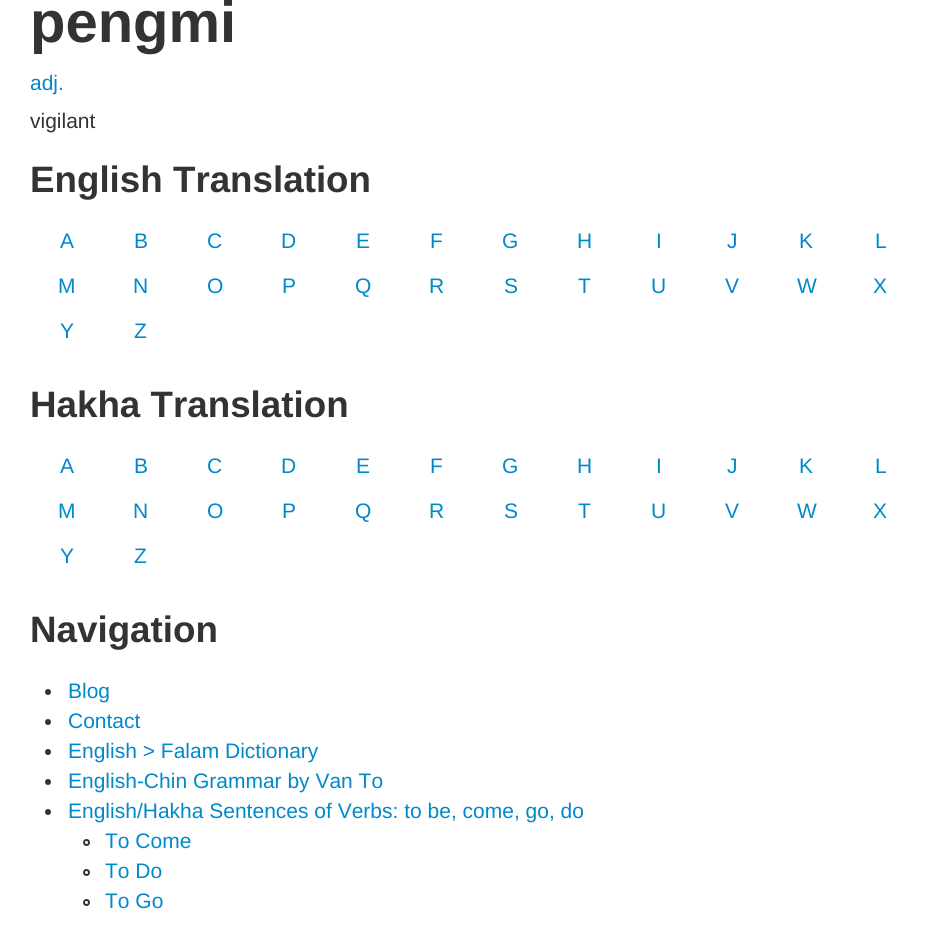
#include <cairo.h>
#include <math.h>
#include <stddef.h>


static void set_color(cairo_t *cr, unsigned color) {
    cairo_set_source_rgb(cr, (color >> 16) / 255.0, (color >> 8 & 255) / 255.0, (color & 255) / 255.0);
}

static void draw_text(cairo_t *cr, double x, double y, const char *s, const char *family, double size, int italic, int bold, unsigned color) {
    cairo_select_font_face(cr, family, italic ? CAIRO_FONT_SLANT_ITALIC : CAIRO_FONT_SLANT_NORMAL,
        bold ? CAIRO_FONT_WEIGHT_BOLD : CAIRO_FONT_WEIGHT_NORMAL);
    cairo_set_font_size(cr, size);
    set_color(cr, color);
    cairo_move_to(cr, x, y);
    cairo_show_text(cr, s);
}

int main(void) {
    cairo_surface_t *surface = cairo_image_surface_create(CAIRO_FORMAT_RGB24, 950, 927);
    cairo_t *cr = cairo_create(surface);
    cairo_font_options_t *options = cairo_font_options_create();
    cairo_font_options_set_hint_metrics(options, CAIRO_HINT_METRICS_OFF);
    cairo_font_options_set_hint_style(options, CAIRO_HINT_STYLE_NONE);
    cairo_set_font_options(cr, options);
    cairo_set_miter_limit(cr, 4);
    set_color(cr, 0xFFFFFF);
    cairo_paint(cr);
    draw_text(cr, 30, 42, "pengmi", "Liberation Sans", 58, 0, 1, 0x333333);
    draw_text(cr, 30, 90, "adj.", "Liberation Sans", 21, 0, 0, 0x0088CC);
    draw_text(cr, 30, 128, "vigilant", "Liberation Sans", 21, 0, 0, 0x333333);
    draw_text(cr, 30, 192, "English Translation", "Liberation Sans", 36.75, 0, 1, 0x333333);
    draw_text(cr, 60, 248, "A", "Liberation Sans", 21, 0, 0, 0x0088CC);
    draw_text(cr, 134, 248, "B", "Liberation Sans", 21, 0, 0, 0x0088CC);
    draw_text(cr, 207, 248, "C", "Liberation Sans", 21, 0, 0, 0x0088CC);
    draw_text(cr, 281, 248, "D", "Liberation Sans", 21, 0, 0, 0x0088CC);
    draw_text(cr, 356, 248, "E", "Liberation Sans", 21, 0, 0, 0x0088CC);
    draw_text(cr, 430, 248, "F", "Liberation Sans", 21, 0, 0, 0x0088CC);
    draw_text(cr, 502, 248, "G", "Liberation Sans", 21, 0, 0, 0x0088CC);
    draw_text(cr, 577, 248, "H", "Liberation Sans", 21, 0, 0, 0x0088CC);
    draw_text(cr, 656, 248, "I", "Liberation Sans", 21, 0, 0, 0x0088CC);
    draw_text(cr, 727, 248, "J", "Liberation Sans", 21, 0, 0, 0x0088CC);
    draw_text(cr, 799, 248, "K", "Liberation Sans", 21, 0, 0, 0x0088CC);
    draw_text(cr, 875, 248, "L", "Liberation Sans", 21, 0, 0, 0x0088CC);
    draw_text(cr, 58, 293, "M", "Liberation Sans", 21, 0, 0, 0x0088CC);
    draw_text(cr, 133, 293, "N", "Liberation Sans", 21, 0, 0, 0x0088CC);
    draw_text(cr, 207, 293, "O", "Liberation Sans", 21, 0, 0, 0x0088CC);
    draw_text(cr, 282, 293, "P", "Liberation Sans", 21, 0, 0, 0x0088CC);
    draw_text(cr, 355, 293, "Q", "Liberation Sans", 21, 0, 0, 0x0088CC);
    draw_text(cr, 429, 293, "R", "Liberation Sans", 21, 0, 0, 0x0088CC);
    draw_text(cr, 504, 293, "S", "Liberation Sans", 21, 0, 0, 0x0088CC);
    draw_text(cr, 578, 293, "T", "Liberation Sans", 21, 0, 0, 0x0088CC);
    draw_text(cr, 651, 293, "U", "Liberation Sans", 21, 0, 0, 0x0088CC);
    draw_text(cr, 725, 293, "V", "Liberation Sans", 21, 0, 0, 0x0088CC);
    draw_text(cr, 797, 293, "W", "Liberation Sans", 21, 0, 0, 0x0088CC);
    draw_text(cr, 873, 293, "X", "Liberation Sans", 21, 0, 0, 0x0088CC);
    draw_text(cr, 60, 338, "Y", "Liberation Sans", 21, 0, 0, 0x0088CC);
    draw_text(cr, 134, 338, "Z", "Liberation Sans", 21, 0, 0, 0x0088CC);
    draw_text(cr, 30, 417, "Hakha Translation", "Liberation Sans", 36.75, 0, 1, 0x333333);
    draw_text(cr, 60, 473, "A", "Liberation Sans", 21, 0, 0, 0x0088CC);
    draw_text(cr, 134, 473, "B", "Liberation Sans", 21, 0, 0, 0x0088CC);
    draw_text(cr, 207, 473, "C", "Liberation Sans", 21, 0, 0, 0x0088CC);
    draw_text(cr, 281, 473, "D", "Liberation Sans", 21, 0, 0, 0x0088CC);
    draw_text(cr, 356, 473, "E", "Liberation Sans", 21, 0, 0, 0x0088CC);
    draw_text(cr, 430, 473, "F", "Liberation Sans", 21, 0, 0, 0x0088CC);
    draw_text(cr, 502, 473, "G", "Liberation Sans", 21, 0, 0, 0x0088CC);
    draw_text(cr, 577, 473, "H", "Liberation Sans", 21, 0, 0, 0x0088CC);
    draw_text(cr, 656, 473, "I", "Liberation Sans", 21, 0, 0, 0x0088CC);
    draw_text(cr, 727, 473, "J", "Liberation Sans", 21, 0, 0, 0x0088CC);
    draw_text(cr, 799, 473, "K", "Liberation Sans", 21, 0, 0, 0x0088CC);
    draw_text(cr, 875, 473, "L", "Liberation Sans", 21, 0, 0, 0x0088CC);
    draw_text(cr, 58, 518, "M", "Liberation Sans", 21, 0, 0, 0x0088CC);
    draw_text(cr, 133, 518, "N", "Liberation Sans", 21, 0, 0, 0x0088CC);
    draw_text(cr, 207, 518, "O", "Liberation Sans", 21, 0, 0, 0x0088CC);
    draw_text(cr, 282, 518, "P", "Liberation Sans", 21, 0, 0, 0x0088CC);
    draw_text(cr, 355, 518, "Q", "Liberation Sans", 21, 0, 0, 0x0088CC);
    draw_text(cr, 429, 518, "R", "Liberation Sans", 21, 0, 0, 0x0088CC);
    draw_text(cr, 504, 518, "S", "Liberation Sans", 21, 0, 0, 0x0088CC);
    draw_text(cr, 578, 518, "T", "Liberation Sans", 21, 0, 0, 0x0088CC);
    draw_text(cr, 651, 518, "U", "Liberation Sans", 21, 0, 0, 0x0088CC);
    draw_text(cr, 725, 518, "V", "Liberation Sans", 21, 0, 0, 0x0088CC);
    draw_text(cr, 797, 518, "W", "Liberation Sans", 21, 0, 0, 0x0088CC);
    draw_text(cr, 873, 518, "X", "Liberation Sans", 21, 0, 0, 0x0088CC);
    draw_text(cr, 60, 563, "Y", "Liberation Sans", 21, 0, 0, 0x0088CC);
    draw_text(cr, 134, 563, "Z", "Liberation Sans", 21, 0, 0, 0x0088CC);
    draw_text(cr, 30, 642, "Navigation", "Liberation Sans", 36.75, 0, 1, 0x333333);
    cairo_new_path(cr);
    cairo_arc(cr, 48, 692, 3, 0, 2 * M_PI);
    cairo_fill(cr);
    draw_text(cr, 68, 698, "Blog", "Liberation Sans", 21, 0, 0, 0x0088CC);
    set_color(cr, 0x333333);
    cairo_new_path(cr);
    cairo_arc(cr, 48, 722, 3, 0, 2 * M_PI);
    cairo_fill(cr);
    draw_text(cr, 68, 728, "Contact", "Liberation Sans", 21, 0, 0, 0x0088CC);
    set_color(cr, 0x333333);
    cairo_new_path(cr);
    cairo_arc(cr, 48, 752, 3, 0, 2 * M_PI);
    cairo_fill(cr);
    draw_text(cr, 68, 758, "English > Falam Dictionary", "Liberation Sans", 21, 0, 0, 0x0088CC);
    set_color(cr, 0x333333);
    cairo_new_path(cr);
    cairo_arc(cr, 48, 782, 3, 0, 2 * M_PI);
    cairo_fill(cr);
    draw_text(cr, 68, 788, "English-Chin Grammar by Van To", "Liberation Sans", 21, 0, 0, 0x0088CC);
    set_color(cr, 0x333333);
    cairo_new_path(cr);
    cairo_arc(cr, 48, 812, 3, 0, 2 * M_PI);
    cairo_fill(cr);
    draw_text(cr, 68, 818, "English/Hakha Sentences of Verbs: to be, come, go, do", "Liberation Sans", 21, 0, 0, 0x0088CC);
    cairo_new_path(cr);
    cairo_arc(cr, 86.5, 842.5, 2.5, 0, 2 * M_PI);
    set_color(cr, 0x333333);
    cairo_stroke(cr);
    draw_text(cr, 105, 848, "To Come", "Liberation Sans", 21, 0, 0, 0x0088CC);
    cairo_new_path(cr);
    cairo_arc(cr, 86.5, 872.5, 2.5, 0, 2 * M_PI);
    set_color(cr, 0x333333);
    cairo_stroke(cr);
    draw_text(cr, 105, 878, "To Do", "Liberation Sans", 21, 0, 0, 0x0088CC);
    cairo_new_path(cr);
    cairo_arc(cr, 86.5, 902.5, 2.5, 0, 2 * M_PI);
    set_color(cr, 0x333333);
    cairo_stroke(cr);
    draw_text(cr, 105, 908, "To Go", "Liberation Sans", 21, 0, 0, 0x0088CC);
    cairo_surface_write_to_png(surface, "output.png");
    cairo_font_options_destroy(options);
    cairo_destroy(cr);
    cairo_surface_destroy(surface);
    return 0;
}
